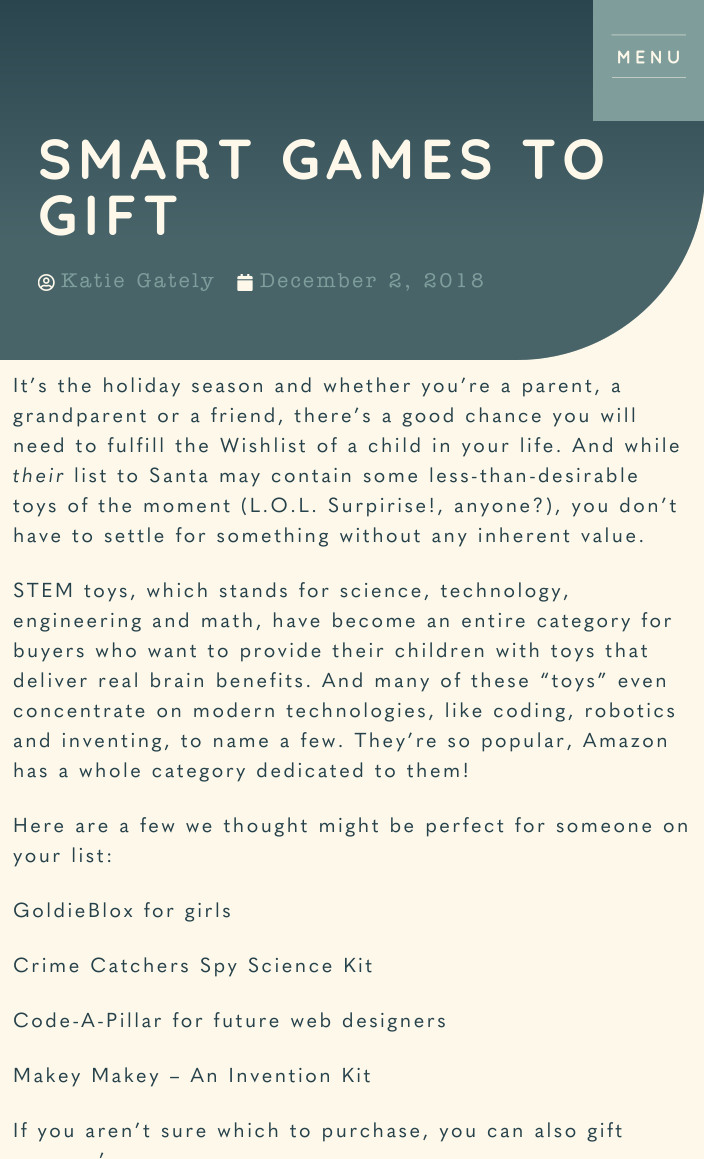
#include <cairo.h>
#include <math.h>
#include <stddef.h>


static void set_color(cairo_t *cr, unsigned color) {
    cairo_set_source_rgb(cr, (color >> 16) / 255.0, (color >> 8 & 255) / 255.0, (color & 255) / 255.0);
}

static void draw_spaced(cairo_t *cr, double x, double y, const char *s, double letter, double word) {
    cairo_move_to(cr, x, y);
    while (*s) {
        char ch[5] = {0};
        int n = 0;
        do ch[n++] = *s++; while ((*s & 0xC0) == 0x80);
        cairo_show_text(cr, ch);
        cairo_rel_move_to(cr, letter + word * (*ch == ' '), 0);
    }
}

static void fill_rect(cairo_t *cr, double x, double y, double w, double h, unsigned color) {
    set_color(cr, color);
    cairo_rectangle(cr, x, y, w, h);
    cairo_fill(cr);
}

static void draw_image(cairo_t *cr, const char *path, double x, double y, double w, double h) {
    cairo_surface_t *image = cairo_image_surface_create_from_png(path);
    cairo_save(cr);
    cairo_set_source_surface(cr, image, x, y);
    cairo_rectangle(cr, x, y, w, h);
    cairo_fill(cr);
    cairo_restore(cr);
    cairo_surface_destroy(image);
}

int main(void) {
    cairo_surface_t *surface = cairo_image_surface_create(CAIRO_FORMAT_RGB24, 704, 1159);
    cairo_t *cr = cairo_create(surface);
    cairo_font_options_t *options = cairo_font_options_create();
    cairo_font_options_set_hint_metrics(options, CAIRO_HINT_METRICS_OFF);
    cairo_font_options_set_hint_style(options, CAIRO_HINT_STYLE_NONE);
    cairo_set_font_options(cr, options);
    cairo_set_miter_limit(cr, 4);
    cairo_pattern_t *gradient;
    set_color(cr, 0xFDF8EA);
    cairo_paint(cr);
    set_color(cr, 0x26414A);
    cairo_new_path(cr);
    cairo_move_to(cr, 0, -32);
    cairo_line_to(cr, 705, -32);
    cairo_line_to(cr, 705, 172);
    cairo_curve_to(cr, 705, 276, 621, 360, 517, 360);
    cairo_line_to(cr, 0, 360);
    cairo_close_path(cr);
    cairo_fill(cr);
    gradient = cairo_pattern_create_linear(353, -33, 353, 360);
    cairo_pattern_add_color_stop_rgba(gradient, 0, 0.149, 0.255, 0.29, 0.38);
    cairo_pattern_add_color_stop_rgba(gradient, 0.69, 0.498, 0.616, 0.608, 0.38);
    cairo_set_source(cr, gradient);
    cairo_pattern_destroy(gradient);
    cairo_new_path(cr);
    cairo_move_to(cr, 0, -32);
    cairo_line_to(cr, 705, -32);
    cairo_line_to(cr, 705, 172);
    cairo_curve_to(cr, 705, 276, 621, 360, 517, 360);
    cairo_line_to(cr, 0, 360);
    cairo_close_path(cr);
    cairo_fill(cr);
    fill_rect(cr, 593, 0, 111, 121, 0x7F9D9B);
    draw_image(cr, "assets/img1.png", 611, 34, 75, 44);
    cairo_select_font_face(cr, "Quicksand", CAIRO_FONT_SLANT_NORMAL, CAIRO_FONT_WEIGHT_BOLD);
    cairo_set_font_size(cr, 56.25);
    set_color(cr, 0xFDF8EA);
    draw_spaced(cr, 38, 179, "SMART GAMES TO", 6.25, 0);
    draw_spaced(cr, 38, 235, "GIFT", 6.25, 0);
    draw_image(cr, "assets/img2.png", 38, 274, 17, 17);
    cairo_select_font_face(cr, "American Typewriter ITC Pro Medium", CAIRO_FONT_SLANT_NORMAL, CAIRO_FONT_WEIGHT_NORMAL);
    cairo_set_font_size(cr, 20);
    set_color(cr, 0x7F9D9B);
    draw_spaced(cr, 61, 287, "Katie Gately", 2.5, 0);
    draw_image(cr, "assets/img3.png", 237, 274, 16, 17);
    draw_spaced(cr, 260, 287, "December 2, 2018", 2.5, 0);
    cairo_select_font_face(cr, "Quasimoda", CAIRO_FONT_SLANT_NORMAL, CAIRO_FONT_WEIGHT_NORMAL);
    set_color(cr, 0x26414A);
    draw_spaced(cr, 13, 392, "It’s the holiday season and whether you’re a parent, a", 2.5, 0);
    draw_spaced(cr, 13, 422, "grandparent or a friend, there’s a good chance you will", 2.5, 0);
    draw_spaced(cr, 13, 452, "need to fulfill the Wishlist of a child in your life. And while", 2.5, 0);
    cairo_select_font_face(cr, "Quasimoda", CAIRO_FONT_SLANT_ITALIC, CAIRO_FONT_WEIGHT_NORMAL);
    draw_spaced(cr, 13, 482, "their", 2.5, 0);
    cairo_select_font_face(cr, "Quasimoda", CAIRO_FONT_SLANT_NORMAL, CAIRO_FONT_WEIGHT_NORMAL);
    draw_spaced(cr, 74, 482, "list to Santa may contain some less-than-desirable", 2.5, 0);
    draw_spaced(cr, 13, 512, "toys of the moment (L.O.L. Surpirise!, anyone?), you don’t", 2.5, 0);
    draw_spaced(cr, 13, 542, "have to settle for something without any inherent value.", 2.5, 0);
    draw_spaced(cr, 13, 597, "STEM toys, which stands for science, technology,", 2.5, 0);
    draw_spaced(cr, 13, 627, "engineering and math, have become an entire category for", 2.5, 0);
    draw_spaced(cr, 13, 657, "buyers who want to provide their children with toys that", 2.5, 0);
    draw_spaced(cr, 13, 687, "deliver real brain benefits. And many of these “toys” even", 2.5, 0);
    draw_spaced(cr, 13, 717, "concentrate on modern technologies, like coding, robotics", 2.5, 0);
    draw_spaced(cr, 13, 747, "and inventing, to name a few. They’re so popular, Amazon", 2.5, 0);
    draw_spaced(cr, 13, 777, "has a whole category dedicated to them!", 2.5, 0);
    draw_spaced(cr, 13, 832, "Here are a few we thought might be perfect for someone on", 2.5, 0);
    draw_spaced(cr, 13, 862, "your list:", 2.5, 0);
    draw_spaced(cr, 13, 917, "GoldieBlox for girls", 2.5, 0);
    draw_spaced(cr, 13, 972, "Crime Catchers Spy Science Kit", 2.5, 0);
    draw_spaced(cr, 13, 1027, "Code-A-Pillar for future web designers", 2.5, 0);
    draw_spaced(cr, 13, 1082, "Makey Makey – An Invention Kit", 2.5, 0);
    draw_spaced(cr, 13, 1137, "If you aren’t sure which to purchase, you can also gift", 2.5, 0);
    draw_spaced(cr, 99, 1167, "’", 2.5, 0);
    cairo_surface_write_to_png(surface, "output.png");
    cairo_font_options_destroy(options);
    cairo_destroy(cr);
    cairo_surface_destroy(surface);
    return 0;
}
